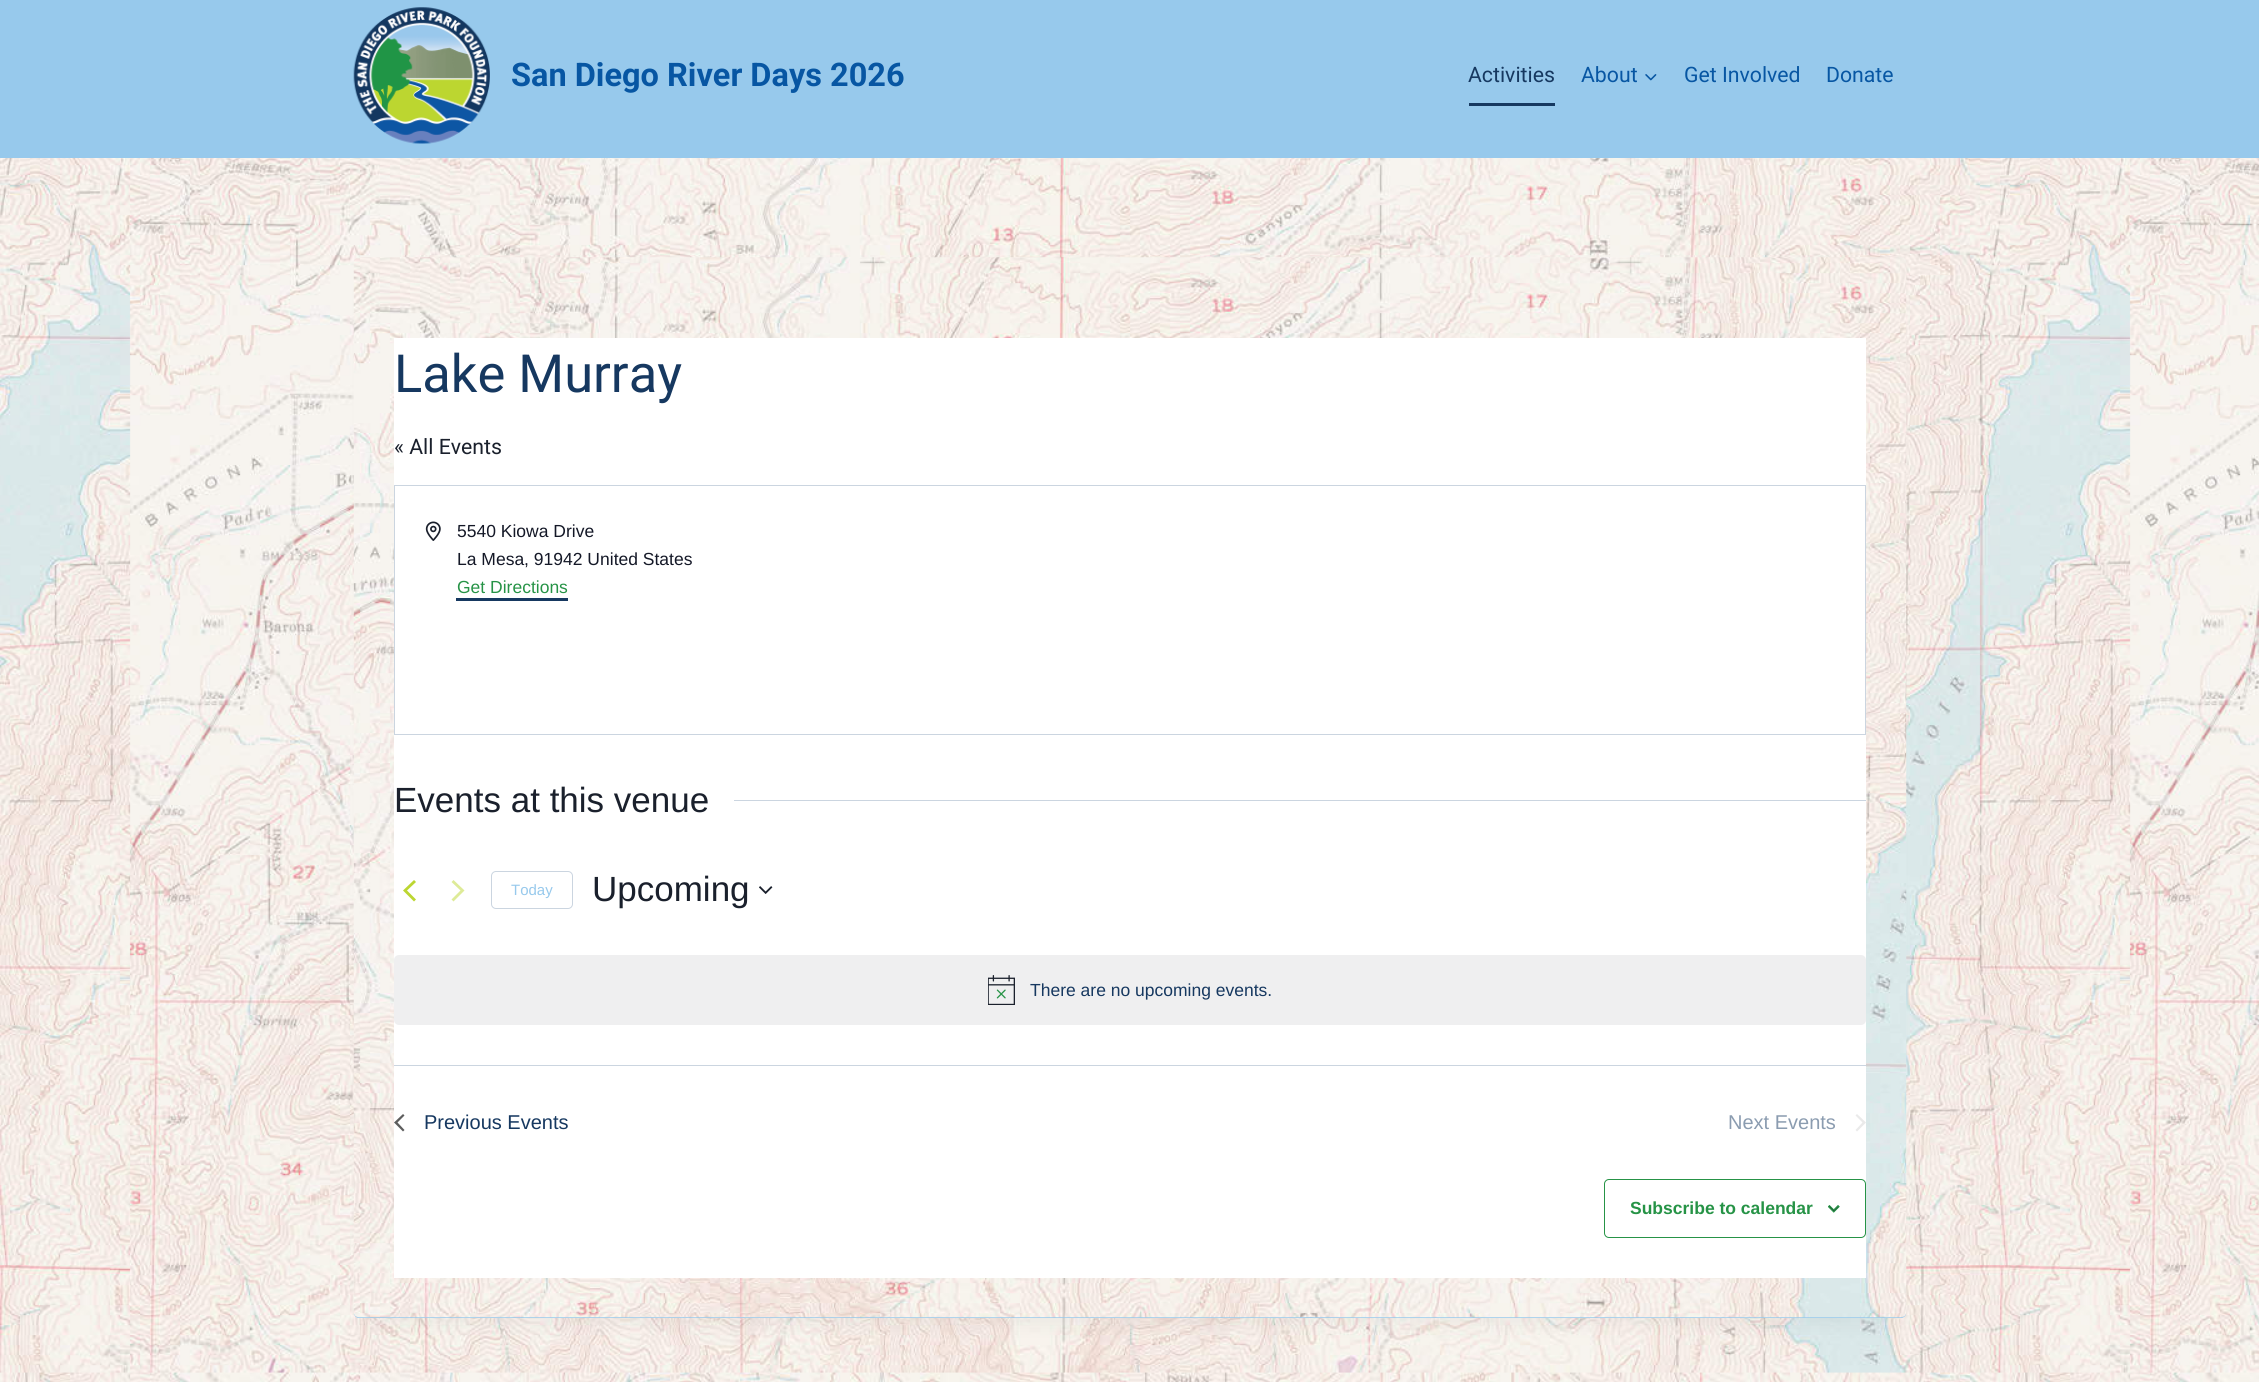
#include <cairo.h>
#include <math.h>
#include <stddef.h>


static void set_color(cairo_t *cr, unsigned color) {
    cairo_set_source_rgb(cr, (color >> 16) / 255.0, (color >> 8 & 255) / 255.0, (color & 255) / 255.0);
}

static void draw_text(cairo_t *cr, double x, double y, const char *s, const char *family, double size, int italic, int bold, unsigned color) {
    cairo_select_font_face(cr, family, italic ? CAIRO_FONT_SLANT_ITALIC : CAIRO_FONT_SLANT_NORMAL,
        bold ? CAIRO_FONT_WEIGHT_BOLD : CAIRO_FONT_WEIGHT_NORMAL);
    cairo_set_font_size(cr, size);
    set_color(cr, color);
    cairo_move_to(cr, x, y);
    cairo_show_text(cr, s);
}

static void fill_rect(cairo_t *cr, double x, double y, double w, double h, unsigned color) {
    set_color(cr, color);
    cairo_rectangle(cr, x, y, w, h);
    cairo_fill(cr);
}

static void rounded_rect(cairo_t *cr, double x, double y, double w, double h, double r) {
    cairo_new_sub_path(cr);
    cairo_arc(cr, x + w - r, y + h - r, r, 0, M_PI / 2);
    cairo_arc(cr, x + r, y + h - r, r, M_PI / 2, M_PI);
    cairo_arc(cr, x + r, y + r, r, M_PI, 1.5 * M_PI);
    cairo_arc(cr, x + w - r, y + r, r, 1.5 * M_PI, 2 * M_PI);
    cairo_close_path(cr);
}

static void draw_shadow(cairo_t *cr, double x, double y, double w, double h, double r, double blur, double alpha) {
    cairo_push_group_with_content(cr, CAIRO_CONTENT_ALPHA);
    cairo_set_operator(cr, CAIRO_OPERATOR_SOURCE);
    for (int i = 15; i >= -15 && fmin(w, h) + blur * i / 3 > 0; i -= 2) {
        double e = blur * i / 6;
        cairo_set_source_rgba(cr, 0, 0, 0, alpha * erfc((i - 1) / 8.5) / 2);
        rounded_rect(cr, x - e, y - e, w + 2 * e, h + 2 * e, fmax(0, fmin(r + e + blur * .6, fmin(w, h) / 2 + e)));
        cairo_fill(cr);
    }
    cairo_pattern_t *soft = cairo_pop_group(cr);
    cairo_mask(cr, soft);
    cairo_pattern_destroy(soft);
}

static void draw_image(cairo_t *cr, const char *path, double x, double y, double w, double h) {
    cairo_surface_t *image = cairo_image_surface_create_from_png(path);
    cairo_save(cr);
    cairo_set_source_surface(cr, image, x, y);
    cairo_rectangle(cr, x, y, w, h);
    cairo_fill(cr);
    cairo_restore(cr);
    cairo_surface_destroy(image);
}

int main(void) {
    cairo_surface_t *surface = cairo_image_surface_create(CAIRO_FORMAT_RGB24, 2259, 1382);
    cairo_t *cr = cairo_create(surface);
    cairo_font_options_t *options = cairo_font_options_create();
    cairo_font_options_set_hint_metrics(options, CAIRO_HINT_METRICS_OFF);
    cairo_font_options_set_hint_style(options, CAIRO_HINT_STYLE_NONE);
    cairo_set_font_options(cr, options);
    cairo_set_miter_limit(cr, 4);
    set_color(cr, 0xFFFFFF);
    cairo_paint(cr);
    draw_image(cr, "assets/img1.png", 0, 158, 2259, 1224);
    fill_rect(cr, 0, 0, 2259, 158, 0x97C9EC);
    draw_image(cr, "assets/img2.png", 353, 7, 137, 137);
    draw_text(cr, 511, 86, "San Diego River Days 2026", "Roboto", 32.5, 0, 1, 0x0756A3);
    draw_text(cr, 1468, 82, "Activities", "Roboto", 21.25, 0, 0, 0x163860);
    fill_rect(cr, 1469, 103, 86, 3, 0x163860);
    draw_text(cr, 1581, 82, "About", "Roboto", 21.25, 0, 0, 0x0756A3);
    draw_image(cr, "assets/img3.png", 1645, 74, 12, 7);
    draw_text(cr, 1684, 82, "Get Involved", "Roboto", 21.25, 0, 0, 0x0756A3);
    draw_text(cr, 1826, 82, "Donate", "Roboto", 21.25, 0, 0, 0x0756A3);
    set_color(cr, 0x000000);
    draw_shadow(cr, 366, 289, 1528, 1035, 0, 9.5, 0.05);
    set_color(cr, 0x97C9EC);
    rounded_rect(cr, 354, 258, 1552, 1060, 5);
    cairo_fill(cr);
    draw_image(cr, "assets/img4.png", 353, 257, 1554, 1061);
    fill_rect(cr, 394, 338, 1472, 940, 0xFFFFFF);
    draw_text(cr, 394, 392, "Lake Murray", "Roboto", 52.5, 0, 0, 0x163860);
    draw_text(cr, 394, 454, "« All Events", "Roboto", 21.25, 0, 0, 0x1A202C);
    cairo_rectangle(cr, 394.5, 485.5, 1471, 249);
    set_color(cr, 0xCBD5E0);
    cairo_set_line_width(cr, 1);
    cairo_stroke(cr);
    draw_image(cr, "assets/img5.png", 425, 521, 16, 20);
    draw_text(cr, 457, 537, "5540 Kiowa Drive", "Liberation Sans", 17.5, 0, 0, 0x141827);
    draw_text(cr, 457, 565, "La Mesa, 91942 United States", "Liberation Sans", 17.5, 0, 0, 0x141827);
    draw_text(cr, 457, 593, "Get Directions", "Liberation Sans", 17.5, 0, 0, 0x269346);
    fill_rect(cr, 456, 598, 112, 3, 0x163860);
    draw_text(cr, 394, 812, "Events at this venue", "Liberation Sans", 35, 0, 0, 0x1A202C);
    fill_rect(cr, 734, 800, 1132, 1, 0xCBD5E0);
    set_color(cr, 0xBCD631);
    cairo_new_path(cr);
    cairo_move_to(cr, 416, 899.5);
    cairo_line_to(cr, 414, 901.5);
    cairo_line_to(cr, 403, 890.5);
    cairo_line_to(cr, 414, 880);
    cairo_line_to(cr, 416, 882);
    cairo_line_to(cr, 407, 890.5);
    cairo_close_path(cr);
    cairo_fill(cr);
    set_color(cr, 0xDEEB98);
    cairo_new_path(cr);
    cairo_move_to(cr, 451.5, 882);
    cairo_line_to(cr, 453.5, 880);
    cairo_line_to(cr, 464.5, 890.5);
    cairo_line_to(cr, 453.5, 901.5);
    cairo_line_to(cr, 451.5, 899.5);
    cairo_line_to(cr, 460.5, 890.5);
    cairo_close_path(cr);
    cairo_fill(cr);
    rounded_rect(cr, 491.5, 871.5, 81, 37, 4.5);
    set_color(cr, 0xCBD5E0);
    cairo_stroke(cr);
    draw_text(cr, 511, 895, "Today", "Liberation Sans", 15, 0, 0, 0x97C9EC);
    draw_text(cr, 592, 901, "Upcoming", "Liberation Sans", 35, 0, 0, 0x1A202C);
    draw_image(cr, "assets/img6.png", 759, 886, 14, 8);
    set_color(cr, 0xEFEFF0);
    rounded_rect(cr, 394, 955, 1472, 70, 5);
    cairo_fill(cr);
    draw_image(cr, "assets/img7.png", 988, 975, 27, 30);
    draw_text(cr, 1030, 996, "There are no upcoming events.", "Liberation Sans", 17.5, 0, 0, 0x163860);
    fill_rect(cr, 394, 1065, 1472, 1, 0xCBD5E0);
    set_color(cr, 0x5D5D5D);
    cairo_new_path(cr);
    cairo_move_to(cr, 404.5, 1130);
    cairo_line_to(cr, 403, 1131.5);
    cairo_line_to(cr, 394, 1122.5);
    cairo_line_to(cr, 403, 1114);
    cairo_line_to(cr, 404.5, 1115.5);
    cairo_line_to(cr, 397.5, 1122.5);
    cairo_close_path(cr);
    cairo_fill(cr);
    draw_text(cr, 424, 1129, "Previous Events", "Liberation Sans", 20, 0, 0, 0x163860);
    draw_text(cr, 1728, 1129, "Next Events", "Liberation Sans", 20, 0, 0, 0x8B9CB0);
    set_color(cr, 0xEAEAEA);
    cairo_new_path(cr);
    cairo_move_to(cr, 1855.5, 1115.5);
    cairo_line_to(cr, 1857, 1114);
    cairo_line_to(cr, 1866, 1122.5);
    cairo_line_to(cr, 1857, 1131.5);
    cairo_line_to(cr, 1855.5, 1130);
    cairo_line_to(cr, 1862.5, 1122.5);
    cairo_close_path(cr);
    cairo_fill(cr);
    rounded_rect(cr, 1604.5, 1179.5, 261, 58, 4.5);
    set_color(cr, 0x269346);
    cairo_stroke(cr);
    draw_text(cr, 1630, 1214, "Subscribe to calendar", "Liberation Sans", 17.5, 0, 1, 0x269346);
    draw_image(cr, "assets/img8.png", 1828, 1205, 12, 8);
    cairo_surface_write_to_png(surface, "output.png");
    cairo_font_options_destroy(options);
    cairo_destroy(cr);
    cairo_surface_destroy(surface);
    return 0;
}
